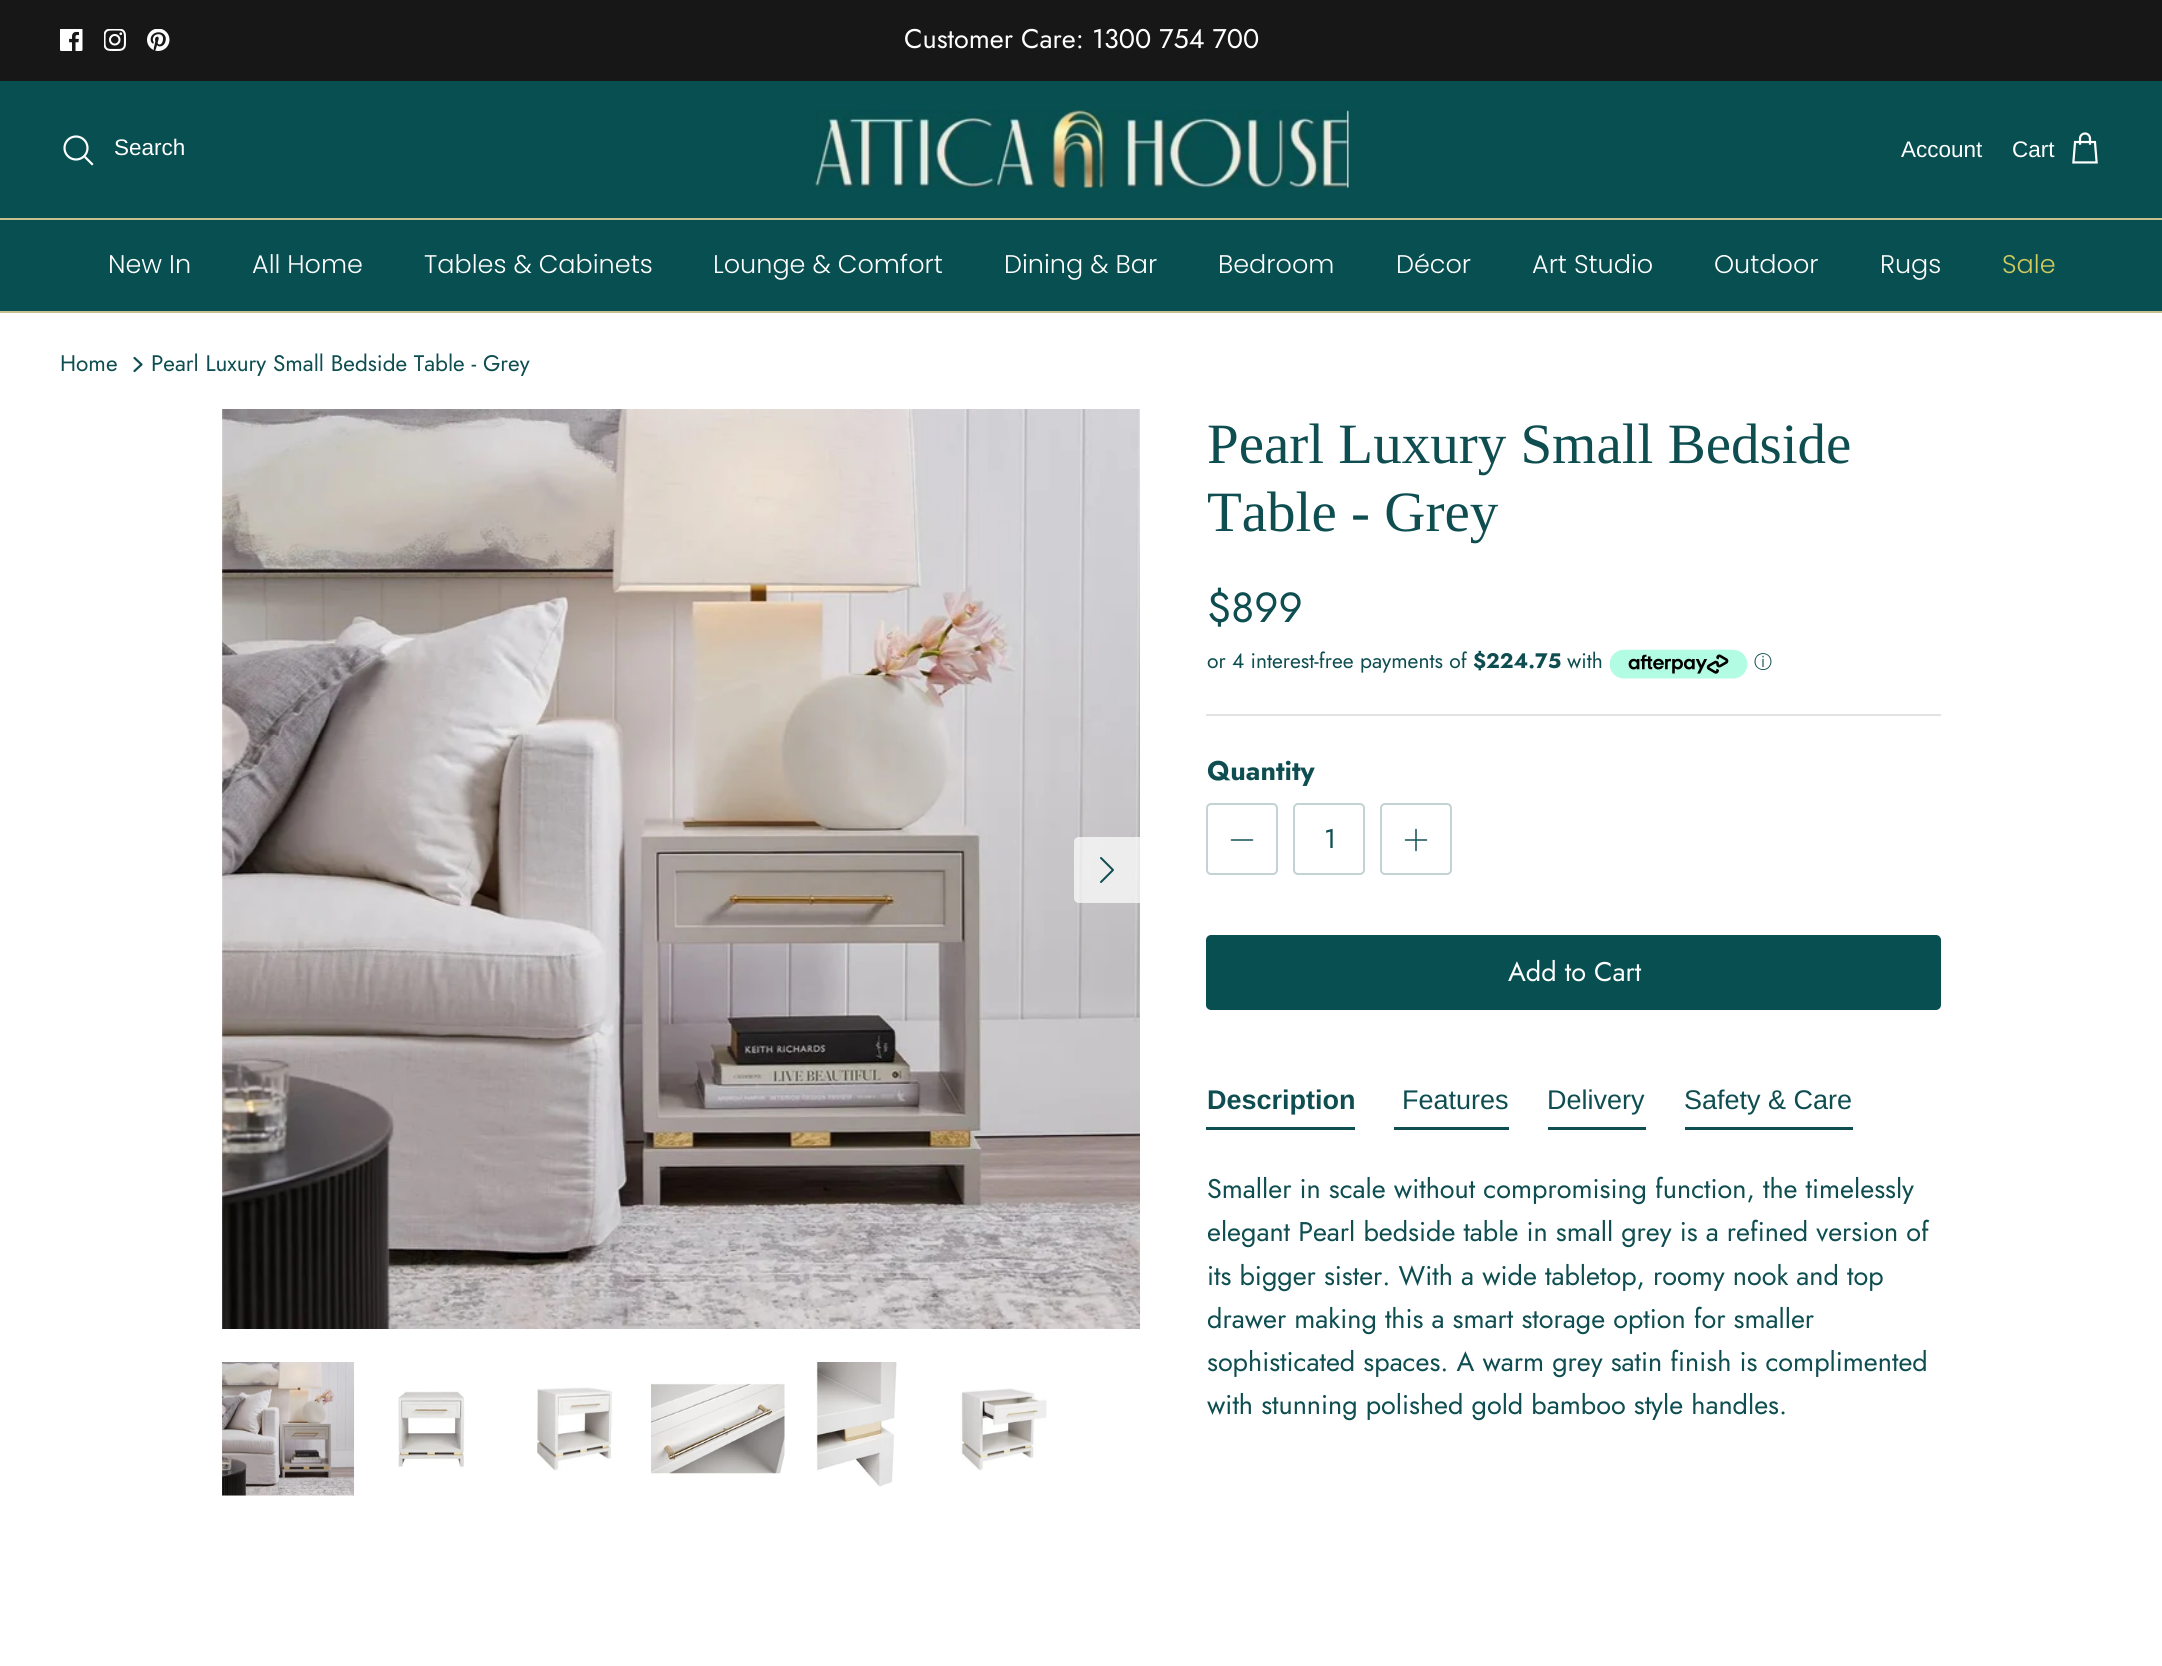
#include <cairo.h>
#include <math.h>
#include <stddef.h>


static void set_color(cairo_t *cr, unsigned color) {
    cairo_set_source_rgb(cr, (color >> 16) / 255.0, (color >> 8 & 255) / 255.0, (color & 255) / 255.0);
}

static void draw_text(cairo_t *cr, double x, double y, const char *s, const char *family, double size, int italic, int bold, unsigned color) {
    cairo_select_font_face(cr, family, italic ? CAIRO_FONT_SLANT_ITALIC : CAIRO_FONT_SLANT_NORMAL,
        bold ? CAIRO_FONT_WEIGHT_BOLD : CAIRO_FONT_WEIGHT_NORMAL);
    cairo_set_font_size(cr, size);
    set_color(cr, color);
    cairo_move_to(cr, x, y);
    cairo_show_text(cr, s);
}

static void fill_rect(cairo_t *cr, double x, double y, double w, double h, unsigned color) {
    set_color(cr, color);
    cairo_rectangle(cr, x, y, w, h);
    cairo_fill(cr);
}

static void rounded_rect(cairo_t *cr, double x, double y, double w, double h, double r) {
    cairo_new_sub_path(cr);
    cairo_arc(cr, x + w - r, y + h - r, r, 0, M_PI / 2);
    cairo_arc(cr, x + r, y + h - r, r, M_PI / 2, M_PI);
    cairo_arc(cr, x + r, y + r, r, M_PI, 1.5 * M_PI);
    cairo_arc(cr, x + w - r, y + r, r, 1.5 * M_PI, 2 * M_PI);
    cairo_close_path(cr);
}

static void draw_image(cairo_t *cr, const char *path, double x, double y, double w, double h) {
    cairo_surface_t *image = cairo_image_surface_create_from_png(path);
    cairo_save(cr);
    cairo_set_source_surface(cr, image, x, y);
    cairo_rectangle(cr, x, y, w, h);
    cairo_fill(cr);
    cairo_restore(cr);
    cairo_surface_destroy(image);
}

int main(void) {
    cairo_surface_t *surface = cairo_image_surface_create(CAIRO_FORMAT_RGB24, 2162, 1666);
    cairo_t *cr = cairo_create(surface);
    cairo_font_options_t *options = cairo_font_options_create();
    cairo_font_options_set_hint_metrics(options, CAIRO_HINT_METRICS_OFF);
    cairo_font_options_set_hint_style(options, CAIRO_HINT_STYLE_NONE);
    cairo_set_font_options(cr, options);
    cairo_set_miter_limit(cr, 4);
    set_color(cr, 0xFFFFFF);
    cairo_paint(cr);
    fill_rect(cr, 0, 0, 2162, 81, 0x171717);
    draw_image(cr, "assets/img1.png", 60, 29, 23, 22);
    draw_image(cr, "assets/img2.png", 104, 29, 22, 22);
    draw_image(cr, "assets/img3.png", 147, 29, 23, 22);
    draw_text(cr, 904, 48, "Customer Care: 1300 754 700", "Jost", 27, 0, 0, 0xFFFFFF);
    fill_rect(cr, 0, 81, 2162, 137, 0x074F51);
    fill_rect(cr, 0, 218, 2162, 2, 0xC9C08E);
    cairo_new_path(cr);
    cairo_arc(cr, 76, 148, 11.5, 0, 2 * M_PI);
    set_color(cr, 0xFFFFFF);
    cairo_set_line_width(cr, 2.2);
    cairo_stroke(cr);
    draw_text(cr, 114, 155, "Search", "Liberation Sans", 22.5, 0, 0, 0xFFFFFF);
    cairo_new_path(cr);
    cairo_move_to(cr, 85.5, 157.5);
    cairo_line_to(cr, 92, 164);
    cairo_set_line_cap(cr, CAIRO_LINE_CAP_SQUARE);
    cairo_stroke(cr);
    draw_image(cr, "assets/img4.png", 815, 110, 534, 78);
    draw_text(cr, 1901, 157, "Account", "Liberation Sans", 22.5, 0, 0, 0xFFFFFF);
    draw_text(cr, 2012, 157, "Cart", "Liberation Sans", 22.5, 0, 0, 0xFFFFFF);
    draw_image(cr, "assets/img5.png", 2072, 132, 26, 32);
    fill_rect(cr, 0, 311, 2162, 2, 0xC9C08E);
    fill_rect(cr, 0, 220, 2162, 91, 0x074F51);
    draw_text(cr, 108, 273, "New In", "Poppins Light", 25.5, 0, 0, 0xFFFFFF);
    draw_text(cr, 252, 273, "All Home", "Poppins Light", 25.5, 0, 0, 0xFFFFFF);
    draw_text(cr, 424, 273, "Tables & Cabinets", "Poppins Light", 25.5, 0, 0, 0xFFFFFF);
    draw_text(cr, 713, 273, "Lounge & Comfort", "Poppins Light", 25.5, 0, 0, 0xFFFFFF);
    draw_text(cr, 1004, 273, "Dining & Bar", "Poppins Light", 25.5, 0, 0, 0xFFFFFF);
    draw_text(cr, 1218, 273, "Bedroom", "Poppins Light", 25.5, 0, 0, 0xFFFFFF);
    draw_text(cr, 1396, 273, "Décor", "Poppins Light", 25.5, 0, 0, 0xFFFFFF);
    draw_text(cr, 1532, 273, "Art Studio", "Poppins Light", 25.5, 0, 0, 0xFFFFFF);
    draw_text(cr, 1714, 273, "Outdoor", "Poppins Light", 25.5, 0, 0, 0xFFFFFF);
    draw_text(cr, 1880, 273, "Rugs", "Poppins Light", 25.5, 0, 0, 0xFFFFFF);
    draw_text(cr, 2002, 273, "Sale", "Poppins Light", 25.5, 0, 0, 0xD1CA5F);
    draw_text(cr, 60, 371, "Home", "Jost", 22.5, 0, 0, 0x0E4D50);
    cairo_new_path(cr);
    cairo_move_to(cr, 134.5, 371);
    cairo_line_to(cr, 141.5, 364.5);
    cairo_line_to(cr, 134.5, 358);
    cairo_set_line_cap(cr, CAIRO_LINE_CAP_ROUND);
    cairo_set_line_join(cr, CAIRO_LINE_JOIN_ROUND);
    cairo_stroke(cr);
    draw_text(cr, 151, 371, "Pearl Luxury Small Bedside Table - Grey", "Jost", 22.5, 0, 0, 0x0E4D50);
    draw_image(cr, "assets/img6.png", 222, 409, 918, 920);
    cairo_set_source_rgba(cr, 1, 1, 1, 0.7);
    cairo_new_path(cr);
    cairo_move_to(cr, 1079, 837);
    cairo_line_to(cr, 1140, 837);
    cairo_line_to(cr, 1140, 903);
    cairo_line_to(cr, 1079, 903);
    cairo_curve_to(cr, 1076, 903, 1074, 901, 1074, 898);
    cairo_line_to(cr, 1074, 842);
    cairo_curve_to(cr, 1074, 839, 1076, 837, 1079, 837);
    cairo_close_path(cr);
    cairo_fill(cr);
    cairo_new_path(cr);
    cairo_move_to(cr, 1101, 882);
    cairo_line_to(cr, 1113, 870);
    cairo_line_to(cr, 1101, 858);
    set_color(cr, 0x0E4D50);
    cairo_set_line_width(cr, 2);
    cairo_stroke(cr);
    draw_image(cr, "assets/img7.png", 222, 1362, 133, 134);
    draw_image(cr, "assets/img8.png", 398, 1391, 67, 78);
    draw_image(cr, "assets/img9.png", 537, 1387, 76, 84);
    draw_image(cr, "assets/img10.png", 651, 1383, 134, 92);
    draw_image(cr, "assets/img11.png", 816, 1362, 81, 125);
    draw_image(cr, "assets/img12.png", 960, 1388, 87, 83);
    draw_text(cr, 1207, 463, "Pearl Luxury Small Bedside", "Liberation Serif", 57, 0, 0, 0x0E4D50);
    draw_text(cr, 1207, 531, "Table - Grey", "Liberation Serif", 57, 0, 0, 0x0E4D50);
    draw_text(cr, 1207, 622, "$899", "Jost", 42, 0, 0, 0x0E4D50);
    draw_text(cr, 1207, 668, "or 4 interest-free payments of", "Jost", 21, 0, 0, 0x0E4D50);
    draw_text(cr, 1473, 668, "$224.75", "Jost", 21, 0, 1, 0x0E4D50);
    draw_text(cr, 1567, 668, "with", "Jost", 21, 0, 0, 0x0E4D50);
    draw_image(cr, "assets/img13.png", 1610, 649, 138, 30);
    draw_text(cr, 1754, 668, "ⓘ", "WenQuanYi Zen Hei Medium", 18, 0, 0, 0x0E4D50);
    fill_rect(cr, 1206, 714, 735, 2, 0xE2E2E2);
    draw_text(cr, 1207, 780, "Quantity", "Jost", 27, 0, 1, 0x0E4D50);
    rounded_rect(cr, 1207, 804, 70, 70, 4);
    set_color(cr, 0xC3D3D3);
    cairo_set_line_cap(cr, CAIRO_LINE_CAP_BUTT);
    cairo_set_line_join(cr, CAIRO_LINE_JOIN_MITER);
    cairo_stroke(cr);
    cairo_new_path(cr);
    cairo_move_to(cr, 1231.5, 840);
    cairo_line_to(cr, 1252.5, 840);
    set_color(cr, 0x0E4D50);
    cairo_set_line_width(cr, 1.5);
    cairo_set_line_cap(cr, CAIRO_LINE_CAP_ROUND);
    cairo_set_line_join(cr, CAIRO_LINE_JOIN_ROUND);
    cairo_stroke(cr);
    rounded_rect(cr, 1294, 804, 70, 70, 4);
    set_color(cr, 0xC3D3D3);
    cairo_set_line_width(cr, 2);
    cairo_set_line_cap(cr, CAIRO_LINE_CAP_BUTT);
    cairo_set_line_join(cr, CAIRO_LINE_JOIN_MITER);
    cairo_stroke(cr);
    draw_text(cr, 1324, 848, "1", "Jost", 27, 0, 0, 0x0E4D50);
    rounded_rect(cr, 1381, 804, 70, 70, 4);
    set_color(cr, 0xC3D3D3);
    cairo_stroke(cr);
    cairo_new_path(cr);
    cairo_move_to(cr, 1416, 829.5);
    cairo_line_to(cr, 1416, 850.5);
    cairo_move_to(cr, 1405.5, 840);
    cairo_line_to(cr, 1426.5, 840);
    set_color(cr, 0x0E4D50);
    cairo_set_line_width(cr, 1.5);
    cairo_set_line_cap(cr, CAIRO_LINE_CAP_ROUND);
    cairo_set_line_join(cr, CAIRO_LINE_JOIN_ROUND);
    cairo_stroke(cr);
    set_color(cr, 0x074F51);
    rounded_rect(cr, 1207, 936, 733, 73, 4);
    cairo_fill_preserve(cr);
    cairo_set_line_width(cr, 2);
    cairo_set_line_cap(cr, CAIRO_LINE_CAP_BUTT);
    cairo_set_line_join(cr, CAIRO_LINE_JOIN_MITER);
    cairo_stroke(cr);
    draw_text(cr, 1508, 981, "Add to Cart", "Jost", 27, 0, 0, 0xFFFFFF);
    fill_rect(cr, 1206, 1127, 149, 3, 0x0E4D50);
    draw_text(cr, 1207, 1109, "Description", "Liberation Sans", 27, 0, 1, 0x0E4D50);
    fill_rect(cr, 1394, 1127, 115, 3, 0x0E4D50);
    draw_text(cr, 1402, 1109, "Features", "Liberation Sans", 27, 0, 0, 0x0E4D50);
    fill_rect(cr, 1548, 1127, 98, 3, 0x0E4D50);
    draw_text(cr, 1547, 1109, "Delivery", "Liberation Sans", 27, 0, 0, 0x0E4D50);
    fill_rect(cr, 1685, 1127, 168, 3, 0x0E4D50);
    draw_text(cr, 1684, 1109, "Safety & Care", "Liberation Sans", 27, 0, 0, 0x0E4D50);
    draw_text(cr, 1207, 1198, "Smaller in scale without compromising function, the timelessly", "Jost", 27, 0, 0, 0x0E4D50);
    draw_text(cr, 1207, 1241, "elegant Pearl bedside table in small grey is a refined version of", "Jost", 27, 0, 0, 0x0E4D50);
    draw_text(cr, 1207, 1285, "its bigger sister. With a wide tabletop, roomy nook and top", "Jost", 27, 0, 0, 0x0E4D50);
    draw_text(cr, 1207, 1328, "drawer making this a smart storage option for smaller", "Jost", 27, 0, 0, 0x0E4D50);
    draw_text(cr, 1207, 1371, "sophisticated spaces. A warm grey satin finish is complimented", "Jost", 27, 0, 0, 0x0E4D50);
    draw_text(cr, 1207, 1414, "with stunning polished gold bamboo style handles.", "Jost", 27, 0, 0, 0x0E4D50);
    cairo_surface_write_to_png(surface, "output.png");
    cairo_font_options_destroy(options);
    cairo_destroy(cr);
    cairo_surface_destroy(surface);
    return 0;
}
